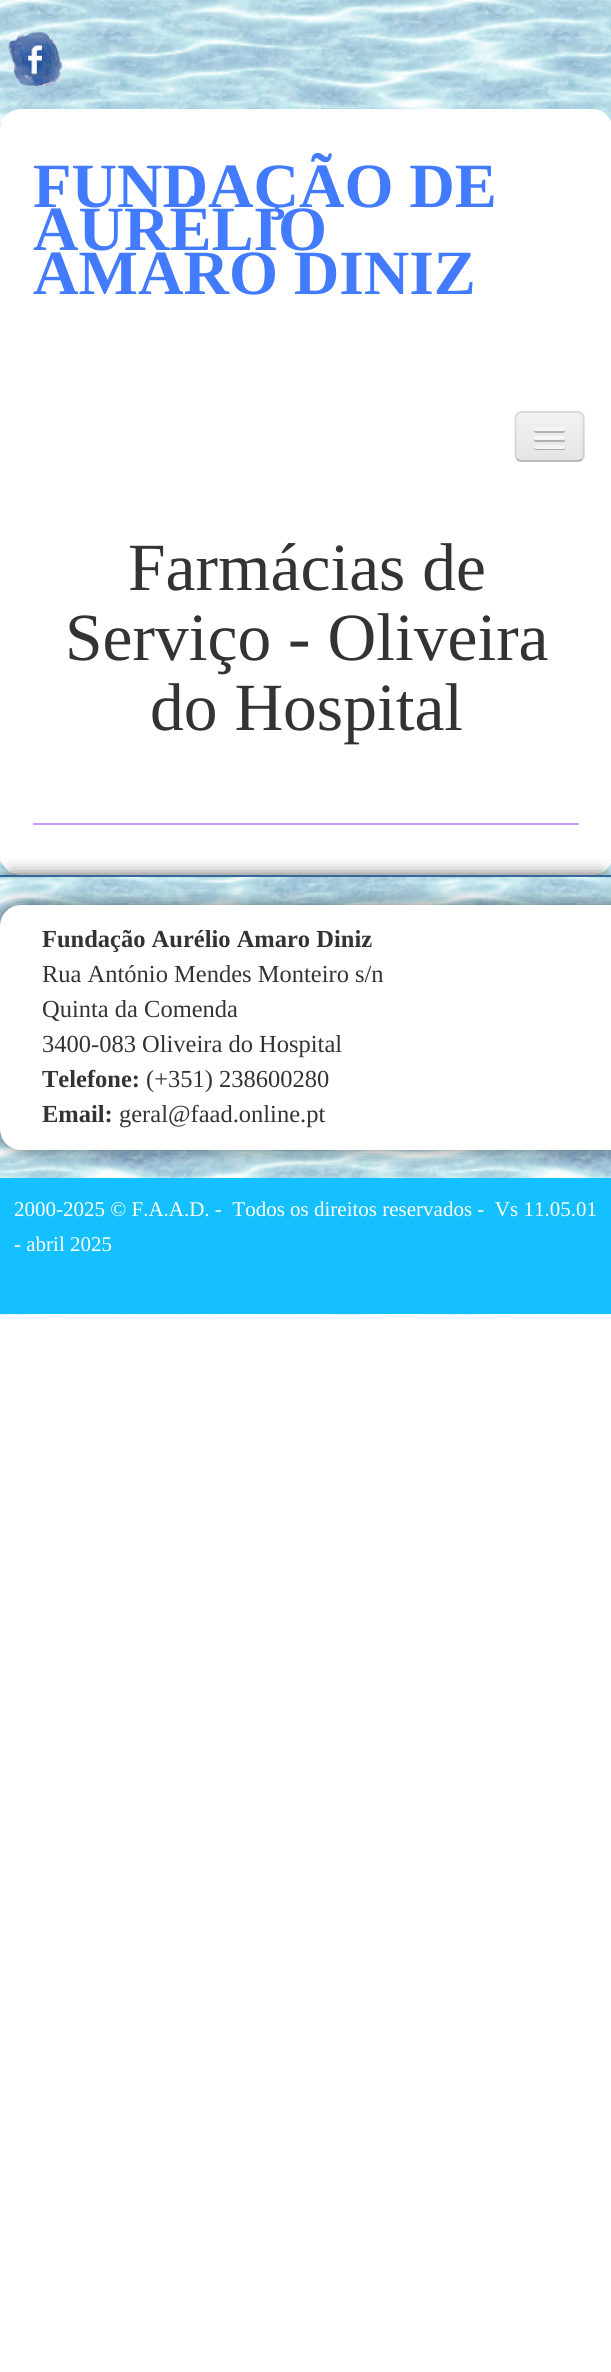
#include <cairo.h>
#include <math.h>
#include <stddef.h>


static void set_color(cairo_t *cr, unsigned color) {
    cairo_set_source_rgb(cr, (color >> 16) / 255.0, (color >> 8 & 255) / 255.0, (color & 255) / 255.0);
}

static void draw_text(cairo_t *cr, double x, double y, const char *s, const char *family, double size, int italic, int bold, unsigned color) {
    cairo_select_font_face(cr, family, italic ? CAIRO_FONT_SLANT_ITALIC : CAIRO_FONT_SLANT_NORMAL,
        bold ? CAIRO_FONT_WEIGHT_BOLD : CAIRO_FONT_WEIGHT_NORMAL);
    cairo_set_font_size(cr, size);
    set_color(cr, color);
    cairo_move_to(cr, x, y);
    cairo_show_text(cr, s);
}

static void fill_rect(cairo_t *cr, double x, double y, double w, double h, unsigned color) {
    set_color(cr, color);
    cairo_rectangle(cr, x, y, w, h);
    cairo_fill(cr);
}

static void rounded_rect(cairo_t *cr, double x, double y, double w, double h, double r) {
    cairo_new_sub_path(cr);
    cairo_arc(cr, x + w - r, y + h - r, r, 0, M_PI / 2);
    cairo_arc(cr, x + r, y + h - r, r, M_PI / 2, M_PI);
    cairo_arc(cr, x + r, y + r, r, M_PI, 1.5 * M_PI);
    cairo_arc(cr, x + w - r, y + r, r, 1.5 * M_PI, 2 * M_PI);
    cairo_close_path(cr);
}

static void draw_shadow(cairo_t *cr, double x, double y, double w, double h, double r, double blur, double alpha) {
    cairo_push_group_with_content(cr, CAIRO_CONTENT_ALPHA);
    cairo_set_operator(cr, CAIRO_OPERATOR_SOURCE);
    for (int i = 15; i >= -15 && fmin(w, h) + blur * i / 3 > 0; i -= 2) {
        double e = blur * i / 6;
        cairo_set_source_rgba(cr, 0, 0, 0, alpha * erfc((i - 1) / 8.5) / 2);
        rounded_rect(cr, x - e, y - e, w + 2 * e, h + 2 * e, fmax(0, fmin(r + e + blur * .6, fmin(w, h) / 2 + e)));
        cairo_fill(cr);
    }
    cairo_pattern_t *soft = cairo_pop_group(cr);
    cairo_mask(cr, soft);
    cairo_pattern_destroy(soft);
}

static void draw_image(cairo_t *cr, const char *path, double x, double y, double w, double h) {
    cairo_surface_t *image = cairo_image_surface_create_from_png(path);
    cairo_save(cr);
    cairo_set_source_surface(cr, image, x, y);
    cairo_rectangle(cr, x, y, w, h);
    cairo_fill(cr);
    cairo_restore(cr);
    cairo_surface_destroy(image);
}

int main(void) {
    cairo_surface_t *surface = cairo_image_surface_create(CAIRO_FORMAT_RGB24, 611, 2372);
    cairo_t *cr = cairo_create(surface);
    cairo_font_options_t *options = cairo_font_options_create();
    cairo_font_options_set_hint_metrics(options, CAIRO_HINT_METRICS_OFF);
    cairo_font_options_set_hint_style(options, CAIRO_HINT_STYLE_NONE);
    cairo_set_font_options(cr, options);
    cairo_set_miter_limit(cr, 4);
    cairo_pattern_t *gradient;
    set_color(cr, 0xFFFFFF);
    cairo_paint(cr);
    draw_image(cr, "assets/img1.png", 0, 0, 611, 1315);
    draw_image(cr, "assets/img2.png", 8, 31, 55, 57);
    set_color(cr, 0xFFFFFF);
    rounded_rect(cr, 2.5, 111.5, 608, 761, 18.5);
    cairo_fill_preserve(cr);
    cairo_set_line_width(cr, 5);
    cairo_stroke(cr);
    draw_text(cr, 33, 207, "FUNDAÇÃO DE", "Liberation Serif", 63, 0, 1, 0x427BFF);
    draw_text(cr, 33, 250, "AURÉLIO", "Liberation Serif", 63, 0, 1, 0x427BFF);
    draw_text(cr, 33, 294, "AMARO DINIZ", "Liberation Serif", 63, 0, 1, 0x427BFF);
    set_color(cr, 0xEDEDED);
    rounded_rect(cr, 515, 411, 70, 51, 7);
    cairo_fill(cr);
    cairo_save(cr);
    rounded_rect(cr, 515, 411, 70, 51, 7);
    cairo_clip(cr);
    gradient = cairo_pattern_create_linear(550, 413, 550, 460);
    cairo_pattern_add_color_stop_rgba(gradient, 0, 0.949, 0.949, 0.949, 1);
    cairo_pattern_add_color_stop_rgba(gradient, 1, 0.898, 0.898, 0.898, 1);
    cairo_set_source(cr, gradient);
    cairo_pattern_destroy(gradient);
    cairo_rectangle(cr, 515, 413, 70, 47);
    cairo_fill(cr);
    cairo_restore(cr);
    cairo_new_path(cr);
    cairo_move_to(cr, 582, 459.5);
    cairo_curve_to(cr, 580.5, 460.5, 579, 461, 577.5, 461);
    cairo_line_to(cr, 521.5, 461);
    cairo_curve_to(cr, 520, 461, 518.5, 460.5, 517, 459.5);
    cairo_set_source_rgba(cr, 0, 0, 0, 0.25);
    cairo_set_line_width(cr, 1.8);
    cairo_stroke(cr);
    cairo_new_path(cr);
    cairo_move_to(cr, 517, 459.5);
    cairo_curve_to(cr, 516, 458, 515.5, 456.5, 515.5, 455);
    cairo_line_to(cr, 515.5, 418);
    cairo_curve_to(cr, 515.5, 416.5, 516, 415, 517, 414);
    cairo_curve_to(cr, 518.5, 413, 520, 412, 521.5, 412);
    cairo_line_to(cr, 577.5, 412);
    cairo_curve_to(cr, 579, 412, 580.5, 413, 582, 414);
    cairo_curve_to(cr, 583, 415, 583.5, 416.5, 583.5, 418);
    cairo_line_to(cr, 583.5, 455);
    cairo_curve_to(cr, 583.5, 456.5, 583, 458, 582, 459.5);
    cairo_set_source_rgba(cr, 0, 0, 0, 0.1);
    cairo_stroke(cr);
    set_color(cr, 0xB2B2B2);
    cairo_new_path(cr);
    cairo_move_to(cr, 534.5, 430);
    cairo_curve_to(cr, 532, 434, 540, 433, 540.5, 433);
    cairo_line_to(cr, 558.5, 433);
    cairo_curve_to(cr, 559, 433, 567, 434, 564.5, 430);
    cairo_line_to(cr, 563.5, 430.5);
    cairo_line_to(cr, 535.5, 430.5);
    cairo_close_path(cr);
    cairo_fill(cr);
    set_color(cr, 0xF5F5F5);
    rounded_rect(cr, 534, 427, 31, 4, 2);
    cairo_fill(cr);
    set_color(cr, 0xB0B0B0);
    cairo_new_path(cr);
    cairo_move_to(cr, 534.5, 439);
    cairo_line_to(cr, 534, 440.5);
    cairo_curve_to(cr, 534.5, 443, 539.5, 442, 540.5, 442);
    cairo_line_to(cr, 558.5, 442);
    cairo_curve_to(cr, 559.5, 442, 564.5, 443, 565, 440.5);
    cairo_line_to(cr, 564.5, 439);
    cairo_curve_to(cr, 563.5, 439.5, 535.5, 439.5, 534.5, 439);
    cairo_close_path(cr);
    cairo_fill(cr);
    set_color(cr, 0xF5F5F5);
    rounded_rect(cr, 534, 436, 31, 4, 2);
    cairo_fill(cr);
    set_color(cr, 0xAEAEAE);
    cairo_new_path(cr);
    cairo_move_to(cr, 534, 447.5);
    cairo_curve_to(cr, 533, 451, 539.5, 450, 540.5, 450);
    cairo_line_to(cr, 558.5, 450);
    cairo_curve_to(cr, 559.5, 450, 566, 451, 565, 447.5);
    cairo_line_to(cr, 563.5, 448);
    cairo_line_to(cr, 535.5, 448);
    cairo_close_path(cr);
    cairo_fill(cr);
    set_color(cr, 0xF5F5F5);
    rounded_rect(cr, 534, 445, 31, 4, 2);
    cairo_fill(cr);
    fill_rect(cr, 33, 823, 546, 2, 0xCA99FF);
    draw_text(cr, 128, 590, "Farmácias de", "Liberation Serif", 67.5, 0, 0, 0x333333);
    draw_text(cr, 65, 660, "Serviço - Oliveira", "Liberation Serif", 67.5, 0, 0, 0x333333);
    draw_text(cr, 150, 730, "do Hospital", "Liberation Serif", 67.5, 0, 0, 0x333333);
    cairo_save(cr);
    cairo_rectangle(cr, 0, 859, 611, 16);
    cairo_clip(cr);
    set_color(cr, 0x333333);
    draw_shadow(cr, 11, 877, 591, 418, 0, 9, 1);
    cairo_restore(cr);
    fill_rect(cr, 0, 875, 611, 2, 0x336899);
    set_color(cr, 0x000000);
    draw_shadow(cr, 0, 905, 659, 245, 21, 9, 0.5);
    fill_rect(cr, 28, 923, 583, 209, 0xFFFFFF);
    rounded_rect(cr, 9, 914, 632, 227, 12);
    cairo_set_line_width(cr, 18);
    cairo_stroke(cr);
    fill_rect(cr, 18, 923, 10, 209, 0xFFFFFF);
    draw_text(cr, 42, 947, "Fundação Aurélio Amaro Diniz", "Liberation Serif", 24.5, 0, 1, 0x333333);
    draw_text(cr, 42, 982, "Rua António Mendes Monteiro s/n", "Liberation Serif", 24.5, 0, 0, 0x333333);
    draw_text(cr, 42, 1017, "Quinta da Comenda", "Liberation Serif", 24.5, 0, 0, 0x333333);
    draw_text(cr, 42, 1052, "3400-083 Oliveira do Hospital", "Liberation Serif", 24.5, 0, 0, 0x333333);
    draw_text(cr, 42, 1087, "Telefone:", "Liberation Serif", 24.5, 0, 1, 0x333333);
    draw_text(cr, 146, 1087, "(+351) 238600280", "Liberation Serif", 24.5, 0, 0, 0x333333);
    draw_text(cr, 42, 1122, "Email:", "Liberation Serif", 24.5, 0, 1, 0x333333);
    draw_text(cr, 119, 1122, "geral@faad.online.pt", "Liberation Serif", 24.5, 0, 0, 0x333333);
    fill_rect(cr, 0, 1178, 611, 136, 0x14C0FF);
    draw_text(cr, 14, 1216, "2000-2025 © F.A.A.D. -  Todos os direitos reservados -  Vs 11.05.01", "Liberation Serif", 21, 0, 0, 0xFFFFFF);
    draw_text(cr, 14, 1251, "- abril 2025", "Liberation Serif", 21, 0, 0, 0xFFFFFF);
    cairo_surface_write_to_png(surface, "output.png");
    cairo_font_options_destroy(options);
    cairo_destroy(cr);
    cairo_surface_destroy(surface);
    return 0;
}
